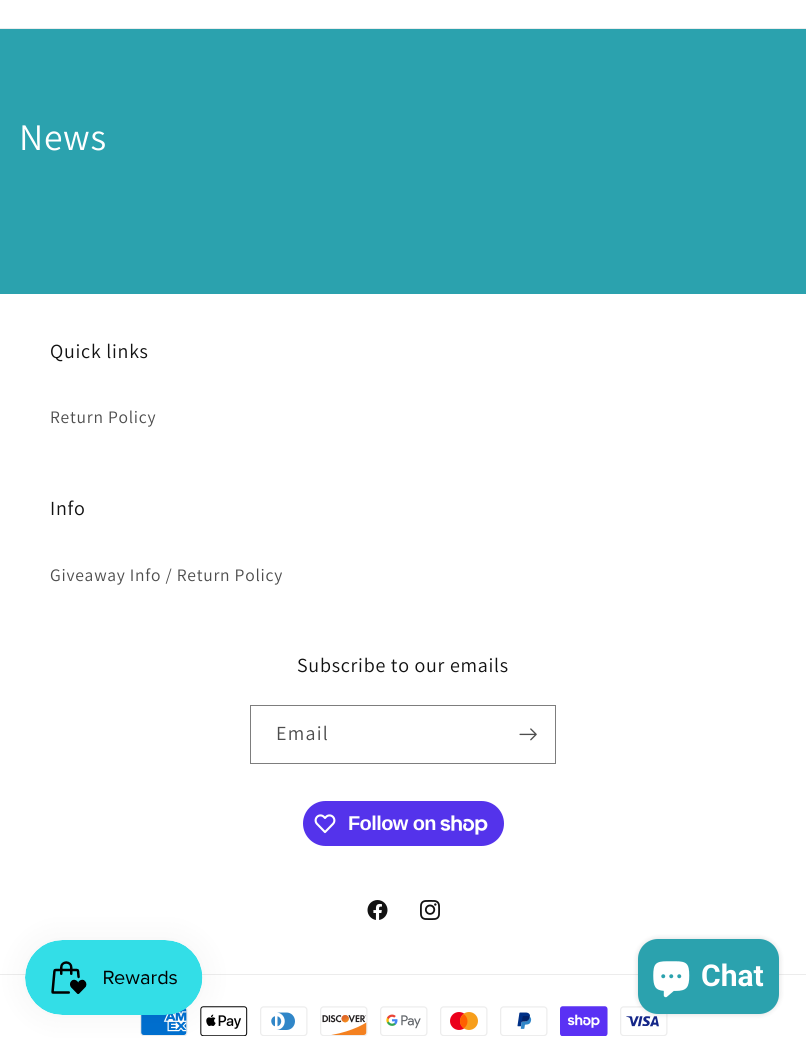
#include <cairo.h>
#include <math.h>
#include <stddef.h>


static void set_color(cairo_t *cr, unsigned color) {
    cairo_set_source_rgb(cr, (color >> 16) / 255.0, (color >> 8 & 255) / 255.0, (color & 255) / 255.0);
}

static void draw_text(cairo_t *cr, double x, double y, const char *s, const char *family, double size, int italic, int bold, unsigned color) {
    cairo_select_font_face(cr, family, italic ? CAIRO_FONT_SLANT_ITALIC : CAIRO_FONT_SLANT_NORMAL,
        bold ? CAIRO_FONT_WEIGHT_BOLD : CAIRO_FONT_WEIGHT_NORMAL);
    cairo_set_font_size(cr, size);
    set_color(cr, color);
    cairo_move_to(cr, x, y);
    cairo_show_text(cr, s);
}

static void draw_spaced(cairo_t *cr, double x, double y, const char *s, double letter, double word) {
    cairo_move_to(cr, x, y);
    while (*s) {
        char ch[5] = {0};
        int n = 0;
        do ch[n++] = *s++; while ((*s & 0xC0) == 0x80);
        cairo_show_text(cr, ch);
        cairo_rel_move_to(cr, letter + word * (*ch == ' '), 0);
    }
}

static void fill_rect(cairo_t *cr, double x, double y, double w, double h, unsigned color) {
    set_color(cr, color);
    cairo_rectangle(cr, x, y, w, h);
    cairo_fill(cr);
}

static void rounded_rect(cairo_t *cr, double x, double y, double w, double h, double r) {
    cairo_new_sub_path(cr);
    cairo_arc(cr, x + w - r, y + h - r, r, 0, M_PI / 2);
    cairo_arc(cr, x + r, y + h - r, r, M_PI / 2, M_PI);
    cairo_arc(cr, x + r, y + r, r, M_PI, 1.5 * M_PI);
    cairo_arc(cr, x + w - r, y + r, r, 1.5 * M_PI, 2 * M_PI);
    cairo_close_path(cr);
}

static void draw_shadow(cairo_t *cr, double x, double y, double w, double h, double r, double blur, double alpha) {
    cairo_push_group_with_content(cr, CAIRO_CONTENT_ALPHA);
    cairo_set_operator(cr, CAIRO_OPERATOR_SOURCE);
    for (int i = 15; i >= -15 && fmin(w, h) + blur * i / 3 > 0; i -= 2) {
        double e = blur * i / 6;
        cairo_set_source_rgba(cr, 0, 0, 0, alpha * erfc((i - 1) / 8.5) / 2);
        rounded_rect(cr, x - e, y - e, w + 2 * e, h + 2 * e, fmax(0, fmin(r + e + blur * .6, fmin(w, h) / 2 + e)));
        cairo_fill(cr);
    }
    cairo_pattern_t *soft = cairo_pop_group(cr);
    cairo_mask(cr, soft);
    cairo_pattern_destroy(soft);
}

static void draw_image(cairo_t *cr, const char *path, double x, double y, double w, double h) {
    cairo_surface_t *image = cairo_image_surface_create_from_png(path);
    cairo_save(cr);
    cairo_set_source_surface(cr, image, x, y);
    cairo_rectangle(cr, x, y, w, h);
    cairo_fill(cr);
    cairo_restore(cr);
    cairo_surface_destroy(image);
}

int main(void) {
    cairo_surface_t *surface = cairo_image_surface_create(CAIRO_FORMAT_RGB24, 806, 1040);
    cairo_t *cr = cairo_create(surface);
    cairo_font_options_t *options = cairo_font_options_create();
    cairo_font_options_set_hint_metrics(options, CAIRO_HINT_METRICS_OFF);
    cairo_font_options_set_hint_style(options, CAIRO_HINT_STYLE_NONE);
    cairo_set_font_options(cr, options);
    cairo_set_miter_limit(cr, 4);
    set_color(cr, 0x2BA2AE);
    cairo_paint(cr);
    fill_rect(cr, 0, 0, 806, 28, 0xFFFFFF);
    fill_rect(cr, 0, 28, 806, 1, 0xECECEC);
    cairo_select_font_face(cr, "Assistant", CAIRO_FONT_SLANT_NORMAL, CAIRO_FONT_WEIGHT_NORMAL);
    cairo_set_font_size(cr, 37.5);
    set_color(cr, 0xFFFFFF);
    draw_spaced(cr, 19, 150, "News", 0.75, 0);
    fill_rect(cr, 0, 294, 806, 746, 0xFFFFFF);
    cairo_set_font_size(cr, 20);
    set_color(cr, 0x121212);
    draw_spaced(cr, 50, 358, "Quick links", 0.75, 0);
    cairo_set_font_size(cr, 17.5);
    set_color(cr, 0x4D4D4D);
    draw_spaced(cr, 50, 423, "Return Policy", 0.75, 0);
    cairo_set_font_size(cr, 20);
    set_color(cr, 0x121212);
    draw_spaced(cr, 50, 515, "Info", 0.75, 0);
    cairo_set_font_size(cr, 17.5);
    set_color(cr, 0x4D4D4D);
    draw_spaced(cr, 50, 581, "Giveaway Info / Return Policy", 0.75, 0);
    cairo_set_font_size(cr, 20);
    set_color(cr, 0x121212);
    draw_spaced(cr, 297, 672, "Subscribe to our emails", 0.75, 0);
    cairo_rectangle(cr, 250.5, 705.5, 305, 58);
    set_color(cr, 0x7D7D7D);
    cairo_set_line_width(cr, 1);
    cairo_stroke(cr);
    set_color(cr, 0x4D4D4D);
    draw_spaced(cr, 276, 740, "Email", 1.25, 0);
    draw_image(cr, "assets/img1.png", 519, 728, 18, 13);
    set_color(cr, 0x5433EB);
    rounded_rect(cr, 303, 801, 201, 45, 22.5);
    cairo_fill(cr);
    draw_image(cr, "assets/img2.png", 314, 814, 22, 20);
    cairo_select_font_face(cr, "Liberation Sans", CAIRO_FONT_SLANT_NORMAL, CAIRO_FONT_WEIGHT_BOLD);
    set_color(cr, 0xFFFFFF);
    draw_spaced(cr, 348, 830, "Follow on", -0.6, 0);
    draw_image(cr, "assets/img3.png", 440, 815, 48, 20);
    draw_image(cr, "assets/img4.png", 367, 900, 21, 20);
    draw_image(cr, "assets/img5.png", 420, 900, 20, 20);
    fill_rect(cr, 0, 974, 806, 1, 0xECECEC);
    draw_image(cr, "assets/img6.png", 140, 1007, 48, 29);
    draw_image(cr, "assets/img7.png", 200, 1006, 48, 30);
    draw_image(cr, "assets/img8.png", 260, 1006, 48, 30);
    draw_image(cr, "assets/img9.png", 320, 1006, 48, 30);
    draw_image(cr, "assets/img10.png", 380, 1006, 48, 30);
    draw_image(cr, "assets/img11.png", 440, 1006, 48, 30);
    draw_image(cr, "assets/img12.png", 500, 1006, 48, 30);
    draw_image(cr, "assets/img13.png", 560, 1006, 48, 30);
    draw_image(cr, "assets/img14.png", 620, 1006, 48, 30);
    set_color(cr, 0x000000);
    draw_shadow(cr, 25, 940, 178, 75, 37.5, 15.5, 0.05);
    draw_image(cr, "assets/img15.png", 25, 940, 178, 75);
    draw_shadow(cr, 638, 939, 141, 75, 20, 3, 0.15);
    set_color(cr, 0x2BA2AE);
    rounded_rect(cr, 638, 939, 141, 75, 20);
    cairo_fill(cr);
    draw_image(cr, "assets/img16.png", 653, 961, 37, 37);
    draw_text(cr, 701, 986, "Chat", "Roboto", 30, 0, 1, 0xFFFFFF);
    cairo_surface_write_to_png(surface, "output.png");
    cairo_font_options_destroy(options);
    cairo_destroy(cr);
    cairo_surface_destroy(surface);
    return 0;
}
